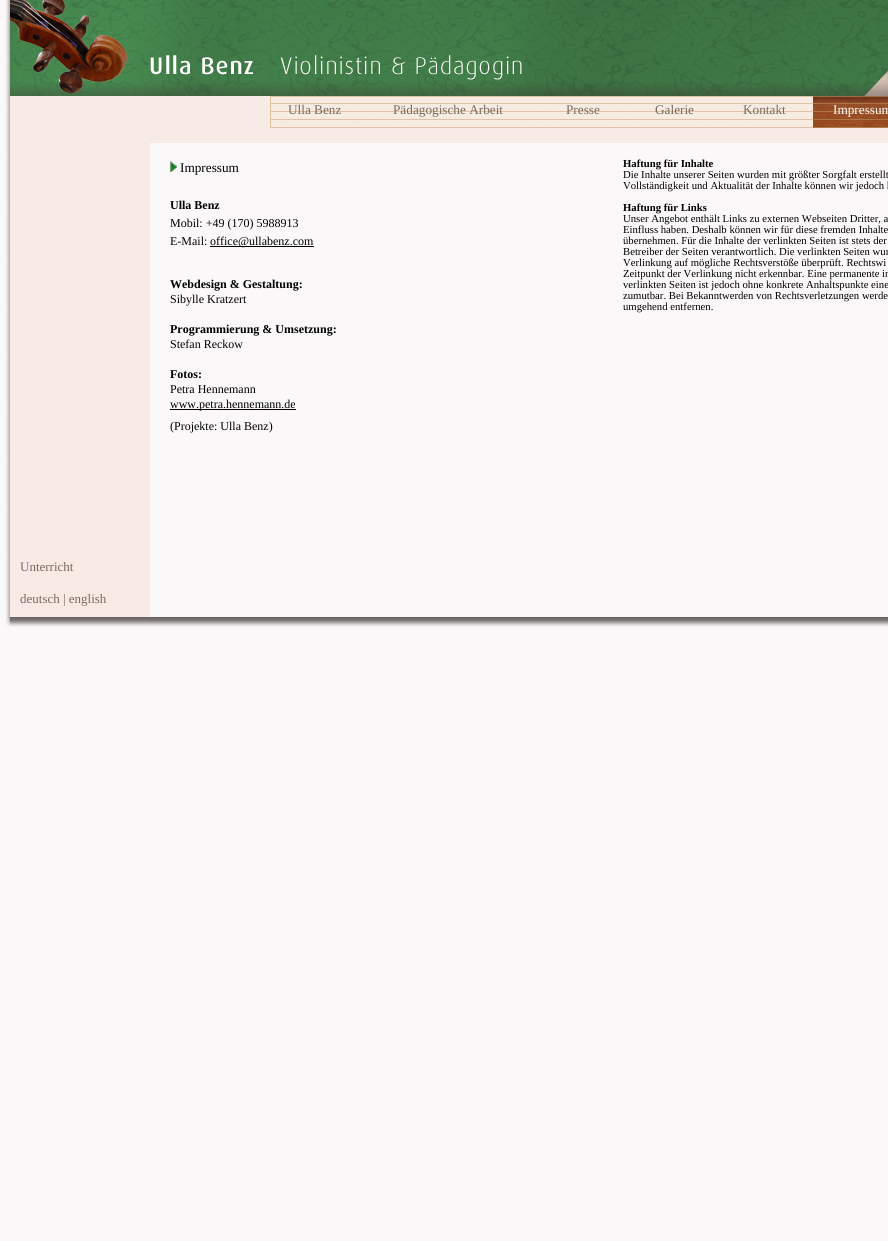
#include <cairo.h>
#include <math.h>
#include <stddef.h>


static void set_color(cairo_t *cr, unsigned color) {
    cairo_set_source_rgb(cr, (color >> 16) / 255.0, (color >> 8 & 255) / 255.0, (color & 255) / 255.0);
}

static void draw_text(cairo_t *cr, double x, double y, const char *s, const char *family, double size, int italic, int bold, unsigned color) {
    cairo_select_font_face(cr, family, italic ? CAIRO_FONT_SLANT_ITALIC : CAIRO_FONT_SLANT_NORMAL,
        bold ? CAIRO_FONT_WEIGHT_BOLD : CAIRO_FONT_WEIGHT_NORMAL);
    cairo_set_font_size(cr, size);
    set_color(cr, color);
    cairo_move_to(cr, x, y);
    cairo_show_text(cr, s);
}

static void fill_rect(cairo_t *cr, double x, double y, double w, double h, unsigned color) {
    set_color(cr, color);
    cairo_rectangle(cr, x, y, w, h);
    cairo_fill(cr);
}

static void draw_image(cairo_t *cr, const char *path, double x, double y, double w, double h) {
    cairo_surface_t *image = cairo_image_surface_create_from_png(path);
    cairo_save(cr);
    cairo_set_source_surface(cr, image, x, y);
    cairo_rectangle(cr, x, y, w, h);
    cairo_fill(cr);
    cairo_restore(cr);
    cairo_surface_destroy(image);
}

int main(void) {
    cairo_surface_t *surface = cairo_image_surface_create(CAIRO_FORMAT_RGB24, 888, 1241);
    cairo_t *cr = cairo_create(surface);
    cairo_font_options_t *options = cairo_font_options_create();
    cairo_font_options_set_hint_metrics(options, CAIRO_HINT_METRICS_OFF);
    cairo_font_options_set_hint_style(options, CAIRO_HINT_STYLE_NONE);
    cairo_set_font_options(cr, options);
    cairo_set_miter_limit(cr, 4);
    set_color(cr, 0xFBF8F9);
    cairo_paint(cr);
    draw_image(cr, "assets/img1.png", 5, 0, 5, 617);
    draw_image(cr, "assets/img2.png", 10, 0, 878, 96);
    fill_rect(cr, 10, 96, 878, 521, 0xF8EBE5);
    draw_image(cr, "assets/img3.png", 270, 96, 543, 32);
    draw_text(cr, 288, 114, "Ulla Benz", "Liberation Serif", 13.25, 0, 0, 0x766B60);
    draw_text(cr, 393, 114, "Pädagogische Arbeit", "Liberation Serif", 13.25, 0, 0, 0x766B60);
    draw_text(cr, 566, 114, "Presse", "Liberation Serif", 13.25, 0, 0, 0x766B60);
    draw_text(cr, 655, 114, "Galerie", "Liberation Serif", 13.25, 0, 0, 0x766B60);
    draw_text(cr, 743, 114, "Kontakt", "Liberation Serif", 13.25, 0, 0, 0x766B60);
    draw_image(cr, "assets/img4.png", 813, 96, 75, 32);
    draw_text(cr, 833, 114, "Impressum", "Liberation Serif", 13.25, 0, 0, 0xFFFFFF);
    fill_rect(cr, 150, 143, 738, 474, 0xFBF8F9);
    draw_image(cr, "assets/img5.png", 170, 161, 7, 11);
    draw_text(cr, 180, 172, "Impressum", "Liberation Serif", 13.25, 0, 0, 0x000000);
    draw_text(cr, 170, 209, "Ulla Benz", "Liberation Serif", 12, 0, 1, 0x000000);
    draw_text(cr, 170, 227, "Mobil: +49 (170) 5988913", "Liberation Serif", 12, 0, 0, 0x000000);
    draw_text(cr, 170, 245, "E-Mail:", "Liberation Serif", 12, 0, 0, 0x000000);
    fill_rect(cr, 210, 246, 104, 1, 0x000000);
    draw_text(cr, 210, 245, "office@ullabenz.com", "Liberation Serif", 12, 0, 0, 0x000000);
    draw_text(cr, 170, 288, "Webdesign & Gestaltung:", "Liberation Serif", 12, 0, 1, 0x000000);
    draw_text(cr, 170, 303, "Sibylle Kratzert", "Liberation Serif", 12, 0, 0, 0x000000);
    draw_text(cr, 170, 333, "Programmierung & Umsetzung:", "Liberation Serif", 12, 0, 1, 0x000000);
    draw_text(cr, 170, 348, "Stefan Reckow", "Liberation Serif", 12, 0, 0, 0x000000);
    draw_text(cr, 170, 378, "Fotos:", "Liberation Serif", 12, 0, 1, 0x000000);
    draw_text(cr, 170, 393, "Petra Hennemann", "Liberation Serif", 12, 0, 0, 0x000000);
    fill_rect(cr, 170, 409, 126, 1, 0x000000);
    draw_text(cr, 170, 408, "www.petra.hennemann.de", "Liberation Serif", 12, 0, 0, 0x000000);
    draw_text(cr, 170, 430, "(Projekte: Ulla Benz)", "Liberation Serif", 12, 0, 0, 0x000000);
    draw_text(cr, 623, 167, "Haftung für Inhalte", "Liberation Serif", 10.7, 0, 1, 0x000000);
    draw_text(cr, 623, 178, "Die Inhalte unserer Seiten wurden mit größter Sorgfalt erstellt", "Liberation Serif", 10.7, 0, 0, 0x000000);
    draw_text(cr, 623, 189, "Vollständigkeit und Aktualität der Inhalte können wir jedoch k", "Liberation Serif", 10.7, 0, 0, 0x000000);
    draw_text(cr, 623, 211, "Haftung für Links", "Liberation Serif", 10.7, 0, 1, 0x000000);
    draw_text(cr, 623, 222, "Unser Angebot enthält Links zu externen Webseiten Dritter, a", "Liberation Serif", 10.7, 0, 0, 0x000000);
    draw_text(cr, 623, 233, "Einfluss haben. Deshalb können wir für diese fremden Inhalte", "Liberation Serif", 10.7, 0, 0, 0x000000);
    draw_text(cr, 623, 244, "übernehmen. Für die Inhalte der verlinkten Seiten ist stets der", "Liberation Serif", 10.7, 0, 0, 0x000000);
    draw_text(cr, 623, 255, "Betreiber der Seiten verantwortlich. Die verlinkten Seiten wur", "Liberation Serif", 10.7, 0, 0, 0x000000);
    draw_text(cr, 623, 266, "Verlinkung auf mögliche Rechtsverstöße überprüft. Rechtswi", "Liberation Serif", 10.7, 0, 0, 0x000000);
    draw_text(cr, 623, 277, "Zeitpunkt der Verlinkung nicht erkennbar. Eine permanente in", "Liberation Serif", 10.7, 0, 0, 0x000000);
    draw_text(cr, 623, 288, "verlinkten Seiten ist jedoch ohne konkrete Anhaltspunkte eine", "Liberation Serif", 10.7, 0, 0, 0x000000);
    draw_text(cr, 623, 299, "zumutbar. Bei Bekanntwerden von Rechtsverletzungen werde", "Liberation Serif", 10.7, 0, 0, 0x000000);
    draw_text(cr, 623, 310, "umgehend entfernen.", "Liberation Serif", 10.7, 0, 0, 0x000000);
    draw_text(cr, 20, 571, "Unterricht", "Liberation Serif", 13, 0, 0, 0x766B60);
    draw_text(cr, 20, 603, "deutsch | english", "Liberation Serif", 13, 0, 0, 0x766B60);
    draw_image(cr, "assets/img6.png", 5, 617, 5, 10);
    draw_image(cr, "assets/img7.png", 10, 617, 878, 10);
    cairo_surface_write_to_png(surface, "output.png");
    cairo_font_options_destroy(options);
    cairo_destroy(cr);
    cairo_surface_destroy(surface);
    return 0;
}
